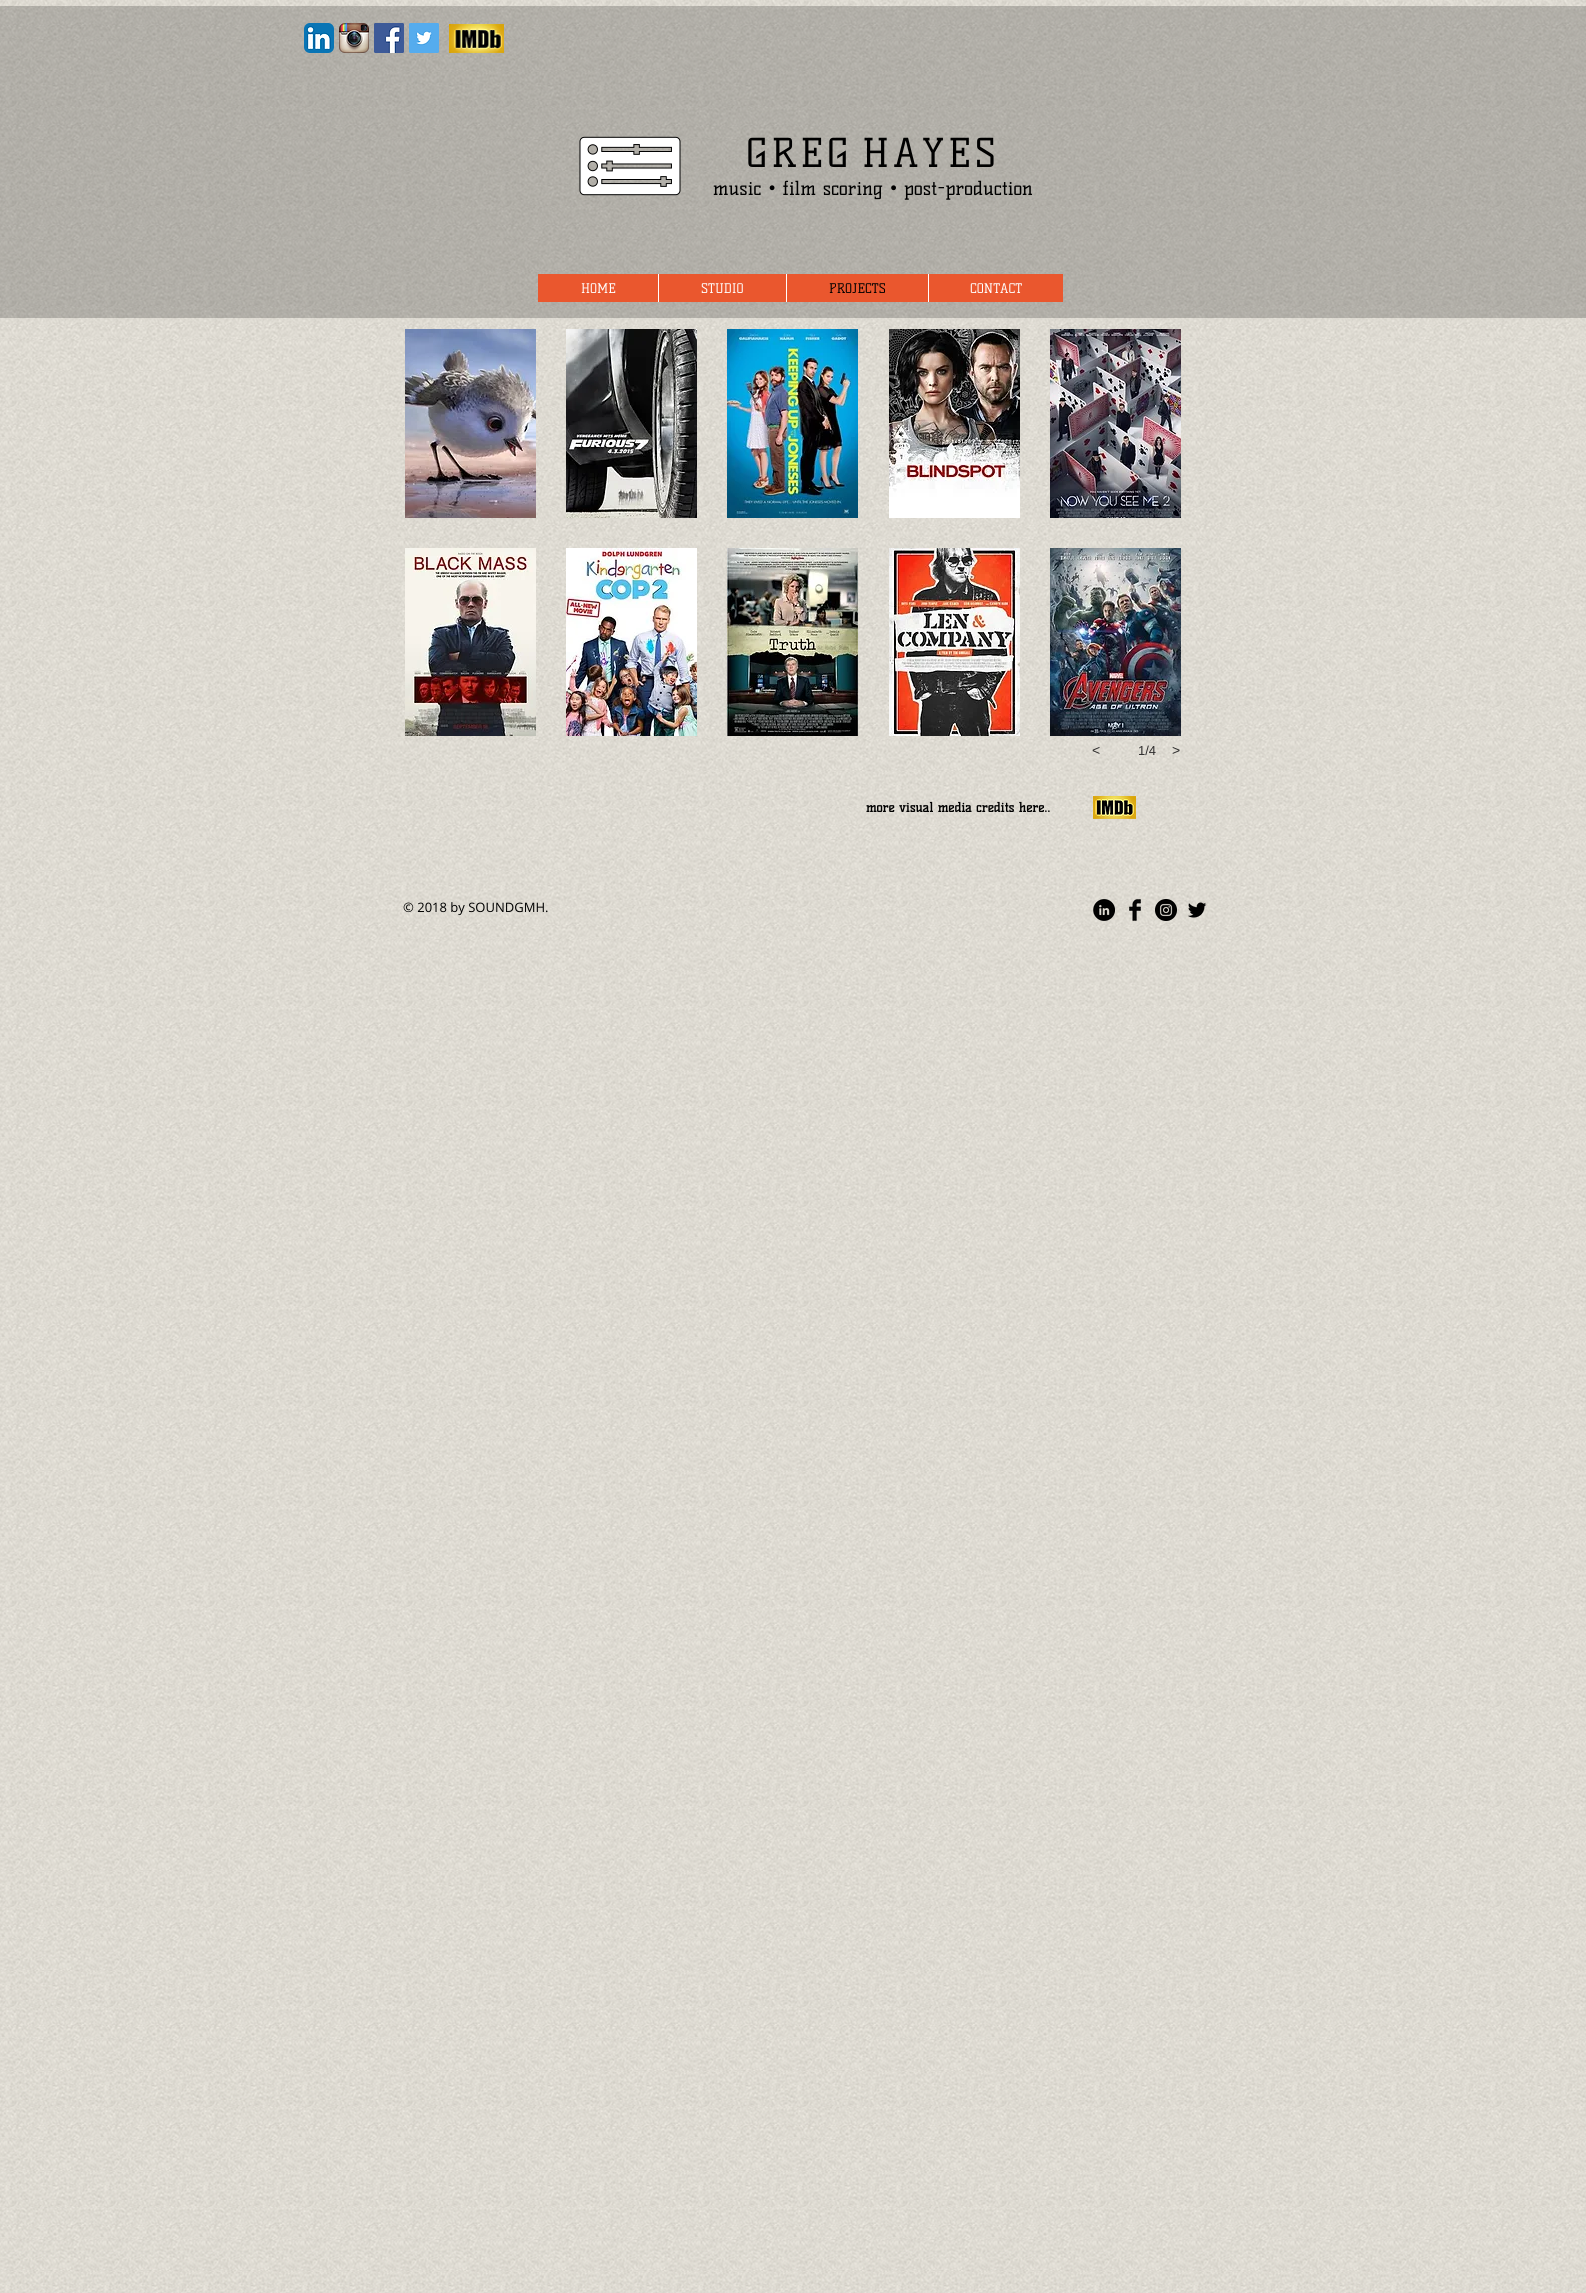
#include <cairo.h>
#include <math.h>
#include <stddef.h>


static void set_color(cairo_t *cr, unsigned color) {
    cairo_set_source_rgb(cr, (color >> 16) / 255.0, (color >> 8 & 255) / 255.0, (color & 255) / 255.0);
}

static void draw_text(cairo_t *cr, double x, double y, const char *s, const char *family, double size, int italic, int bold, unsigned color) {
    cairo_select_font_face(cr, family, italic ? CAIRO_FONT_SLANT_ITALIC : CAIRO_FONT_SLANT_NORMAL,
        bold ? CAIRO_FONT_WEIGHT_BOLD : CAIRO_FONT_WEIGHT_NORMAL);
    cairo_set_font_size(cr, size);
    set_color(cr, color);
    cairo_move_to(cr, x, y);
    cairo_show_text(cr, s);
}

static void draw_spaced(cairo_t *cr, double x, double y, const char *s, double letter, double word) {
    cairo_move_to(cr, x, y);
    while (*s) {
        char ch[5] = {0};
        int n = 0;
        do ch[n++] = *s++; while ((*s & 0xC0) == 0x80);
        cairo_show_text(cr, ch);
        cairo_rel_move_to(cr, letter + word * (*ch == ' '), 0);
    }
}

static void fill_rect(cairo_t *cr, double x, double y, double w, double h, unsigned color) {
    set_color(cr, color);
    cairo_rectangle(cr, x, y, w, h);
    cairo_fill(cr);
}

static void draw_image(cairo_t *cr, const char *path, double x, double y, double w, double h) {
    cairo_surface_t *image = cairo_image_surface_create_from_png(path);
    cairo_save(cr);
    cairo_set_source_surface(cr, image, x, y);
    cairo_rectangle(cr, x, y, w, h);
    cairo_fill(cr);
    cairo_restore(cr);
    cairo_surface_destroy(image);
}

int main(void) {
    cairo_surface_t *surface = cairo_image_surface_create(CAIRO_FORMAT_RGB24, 1586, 2293);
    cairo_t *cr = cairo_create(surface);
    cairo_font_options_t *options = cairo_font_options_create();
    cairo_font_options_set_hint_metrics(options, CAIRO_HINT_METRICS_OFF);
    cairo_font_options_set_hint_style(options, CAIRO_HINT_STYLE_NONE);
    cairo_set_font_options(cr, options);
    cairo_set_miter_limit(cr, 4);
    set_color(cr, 0xFFFFFF);
    cairo_paint(cr);
    draw_image(cr, "assets/img1.png", 0, 0, 1586, 2293);
    cairo_set_source_rgba(cr, 0, 0, 0, 0.2);
    cairo_rectangle(cr, 0, 6, 1586, 312);
    cairo_fill(cr);
    draw_image(cr, "assets/img2.png", 304, 23, 30, 30);
    draw_image(cr, "assets/img3.png", 339, 23, 30, 30);
    draw_image(cr, "assets/img4.png", 374, 23, 30, 30);
    draw_image(cr, "assets/img5.png", 409, 23, 30, 30);
    draw_image(cr, "assets/img6.png", 449, 24, 55, 29);
    draw_image(cr, "assets/img7.png", 579, 136, 102, 60);
    cairo_select_font_face(cr, "Kelly Slab", CAIRO_FONT_SLANT_NORMAL, CAIRO_FONT_WEIGHT_NORMAL);
    cairo_set_font_size(cr, 39);
    set_color(cr, 0x000000);
    draw_spaced(cr, 746, 167, "GREG", 4, 0);
    draw_spaced(cr, 862, 167, "HAYES", 4, 0);
    draw_text(cr, 713, 195, "music • film scoring • post-production", "Kelly Slab", 19, 0, 0, 0x000000);
    fill_rect(cr, 538, 274, 525, 28, 0xEA572E);
    draw_text(cr, 581, 293, "HOME", "Kelly Slab", 13, 0, 0, 0xFFFFFF);
    fill_rect(cr, 658, 274, 1, 28, 0xFFFFFF);
    draw_text(cr, 701, 293, "STUDIO", "Kelly Slab", 13, 0, 0, 0xFFFFFF);
    fill_rect(cr, 786, 274, 1, 28, 0xFFFFFF);
    draw_text(cr, 829, 293, "PROJECTS", "Kelly Slab", 13, 0, 0, 0x000000);
    fill_rect(cr, 928, 274, 1, 28, 0xFFFFFF);
    draw_text(cr, 970, 293, "CONTACT", "Kelly Slab", 13, 0, 0, 0xFFFFFF);
    draw_image(cr, "assets/img8.png", 405, 329, 131, 189);
    draw_image(cr, "assets/img9.png", 566, 329, 131, 189);
    draw_image(cr, "assets/img10.png", 727, 329, 131, 189);
    draw_image(cr, "assets/img11.png", 889, 329, 131, 189);
    draw_image(cr, "assets/img12.png", 1050, 329, 131, 189);
    draw_image(cr, "assets/img13.png", 405, 548, 131, 188);
    draw_image(cr, "assets/img14.png", 566, 548, 131, 188);
    draw_image(cr, "assets/img15.png", 727, 548, 131, 188);
    draw_image(cr, "assets/img16.png", 889, 548, 131, 188);
    draw_image(cr, "assets/img17.png", 1050, 548, 131, 188);
    draw_text(cr, 1138, 755, "1/4", "Liberation Sans", 13, 0, 0, 0x2F2E2E);
    draw_text(cr, 1092, 755, "<", "Liberation Sans", 14, 0, 0, 0x2F2E2E);
    draw_text(cr, 1172, 755, ">", "Liberation Sans", 14, 0, 0, 0x2F2E2E);
    draw_text(cr, 866, 812, "more visual media credits here..", "Kelly Slab", 13, 0, 1, 0x000000);
    draw_image(cr, "assets/img18.png", 1093, 796, 43, 23);
    draw_text(cr, 403, 912, "© 2018 by SOUNDGMH.", "Open Sans", 13, 0, 0, 0x000000);
    draw_image(cr, "assets/img19.png", 1093, 899, 22, 22);
    draw_image(cr, "assets/img20.png", 1129, 899, 12, 22);
    draw_image(cr, "assets/img21.png", 1155, 899, 22, 22);
    draw_image(cr, "assets/img22.png", 1188, 902, 19, 16);
    cairo_surface_write_to_png(surface, "output.png");
    cairo_font_options_destroy(options);
    cairo_destroy(cr);
    cairo_surface_destroy(surface);
    return 0;
}
